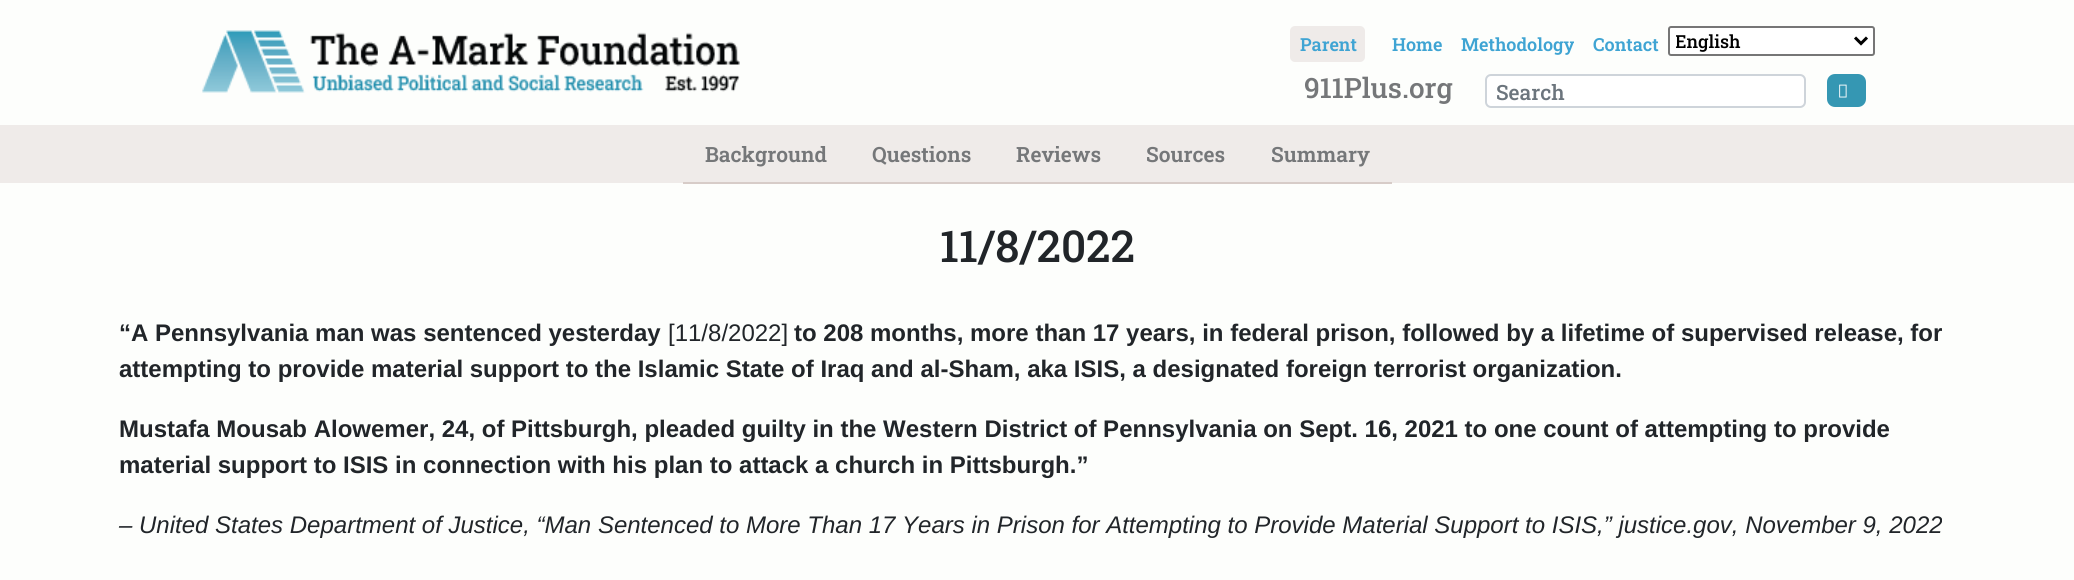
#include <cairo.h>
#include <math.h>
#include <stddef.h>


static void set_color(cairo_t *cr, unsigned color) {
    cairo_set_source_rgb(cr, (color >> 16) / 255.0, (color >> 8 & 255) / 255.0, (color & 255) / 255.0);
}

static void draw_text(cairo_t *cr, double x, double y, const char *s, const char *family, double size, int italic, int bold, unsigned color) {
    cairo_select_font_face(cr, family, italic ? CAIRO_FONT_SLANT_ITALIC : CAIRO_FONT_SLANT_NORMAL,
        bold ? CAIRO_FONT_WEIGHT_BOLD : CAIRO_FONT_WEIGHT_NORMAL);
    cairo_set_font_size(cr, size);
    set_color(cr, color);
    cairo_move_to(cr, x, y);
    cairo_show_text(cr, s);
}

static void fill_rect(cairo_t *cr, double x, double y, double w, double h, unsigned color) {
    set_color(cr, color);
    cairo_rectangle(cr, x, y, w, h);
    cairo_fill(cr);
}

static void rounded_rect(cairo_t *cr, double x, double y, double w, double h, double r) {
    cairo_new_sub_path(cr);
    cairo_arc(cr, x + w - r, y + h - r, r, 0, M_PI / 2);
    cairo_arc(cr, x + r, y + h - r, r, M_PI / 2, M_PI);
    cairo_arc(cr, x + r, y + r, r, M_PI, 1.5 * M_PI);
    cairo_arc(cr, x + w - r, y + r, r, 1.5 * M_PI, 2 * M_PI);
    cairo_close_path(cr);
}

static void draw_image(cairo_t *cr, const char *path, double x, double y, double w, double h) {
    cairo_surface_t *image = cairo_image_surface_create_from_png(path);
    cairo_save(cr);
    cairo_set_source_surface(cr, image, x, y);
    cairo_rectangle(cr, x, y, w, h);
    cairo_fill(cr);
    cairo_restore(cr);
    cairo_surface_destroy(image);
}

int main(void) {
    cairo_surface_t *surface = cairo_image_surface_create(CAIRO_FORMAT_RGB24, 2074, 580);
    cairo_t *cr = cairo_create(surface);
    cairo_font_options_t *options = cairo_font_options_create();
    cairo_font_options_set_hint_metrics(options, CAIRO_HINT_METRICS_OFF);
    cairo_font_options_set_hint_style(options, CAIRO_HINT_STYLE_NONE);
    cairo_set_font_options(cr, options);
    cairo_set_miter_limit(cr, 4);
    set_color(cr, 0xFDFEFC);
    cairo_paint(cr);
    draw_image(cr, "assets/img1.png", 202, 30, 538, 63);
    set_color(cr, 0xEFEBE9);
    rounded_rect(cr, 1290, 26, 75, 36, 5);
    cairo_fill(cr);
    draw_text(cr, 1300, 51, "Parent", "Roboto Slab SemiBold", 18, 0, 0, 0x3FA4D3);
    draw_text(cr, 1392, 51, "Home", "Roboto Slab SemiBold", 18, 0, 0, 0x3FA4D3);
    draw_text(cr, 1461, 51, "Methodology", "Roboto Slab SemiBold", 18, 0, 0, 0x3FA4D3);
    draw_text(cr, 1593, 51, "Contact", "Roboto Slab SemiBold", 18, 0, 0, 0x3FA4D3);
    set_color(cr, 0xFFFFFF);
    rounded_rect(cr, 1669, 27, 205, 28, 2);
    cairo_fill_preserve(cr);
    set_color(cr, 0x767676);
    cairo_stroke(cr);
    cairo_new_path(cr);
    cairo_move_to(cr, 1855, 37.5);
    cairo_line_to(cr, 1861, 43.5);
    cairo_line_to(cr, 1867, 37.5);
    set_color(cr, 0x000000);
    cairo_set_line_width(cr, 3);
    cairo_stroke(cr);
    cairo_save(cr);
    cairo_rectangle(cr, 1676, 27, 174, 27);
    cairo_clip(cr);
    draw_text(cr, 1675, 48, "English", "Roboto Slab Medium", 18, 0, 0, 0x000000);
    cairo_restore(cr);
    draw_text(cr, 1304, 98, "911Plus.org", "Roboto Slab Medium", 28, 0, 0, 0x757779);
    set_color(cr, 0xFFFFFF);
    rounded_rect(cr, 1486, 75, 319, 32, 5);
    cairo_fill_preserve(cr);
    set_color(cr, 0xCED4DA);
    cairo_set_line_width(cr, 2);
    cairo_stroke(cr);
    draw_text(cr, 1496, 100, "Search", "Roboto Slab Medium", 21, 0, 0, 0x6C757D);
    set_color(cr, 0x3597B3);
    rounded_rect(cr, 1827, 74, 39, 33, 8);
    cairo_fill(cr);
    draw_image(cr, "assets/img2.png", 1839, 84, 8, 14);
    fill_rect(cr, 0, 125, 2074, 58, 0xEFEBE9);
    fill_rect(cr, 683, 182, 709, 2, 0xD7CCC8);
    draw_text(cr, 705, 162, "Background", "Roboto Slab SemiBold", 21, 0, 0, 0x757779);
    draw_text(cr, 872, 162, "Questions", "Roboto Slab SemiBold", 21, 0, 0, 0x757779);
    draw_text(cr, 1016, 162, "Reviews", "Roboto Slab SemiBold", 21, 0, 0, 0x757779);
    draw_text(cr, 1146, 162, "Sources", "Roboto Slab SemiBold", 21, 0, 0, 0x757779);
    draw_text(cr, 1271, 162, "Summary", "Roboto Slab SemiBold", 21, 0, 0, 0x757779);
    draw_text(cr, 940, 262, "11/8/2022", "Roboto Slab Medium", 44, 0, 0, 0x212529);
    draw_text(cr, 119, 341, "“A Pennsylvania man was sentenced yesterday", "Liberation Sans", 24, 0, 1, 0x212529);
    draw_text(cr, 668, 341, "[11/8/2022]", "Liberation Sans", 24, 0, 0, 0x212529);
    draw_text(cr, 794, 341, "to 208 months, more than 17 years, in federal prison, followed by a lifetime of supervised release, for", "Liberation Sans", 24, 0, 1, 0x212529);
    draw_text(cr, 119, 377, "attempting to provide material support to the Islamic State of Iraq and al-Sham, aka ISIS, a designated foreign terrorist organization.", "Liberation Sans", 24, 0, 1, 0x212529);
    draw_text(cr, 119, 437, "Mustafa Mousab Alowemer, 24, of Pittsburgh, pleaded guilty in the Western District of Pennsylvania on Sept. 16, 2021 to one count of attempting to provide", "Liberation Sans", 24, 0, 1, 0x212529);
    draw_text(cr, 119, 473, "material support to ISIS in connection with his plan to attack a church in Pittsburgh.”", "Liberation Sans", 24, 0, 1, 0x212529);
    draw_text(cr, 119, 533, "– United States Department of Justice, “Man Sentenced to More Than 17 Years in Prison for Attempting to Provide Material Support to ISIS,” justice.gov, November 9, 2022", "Liberation Sans", 24, 1, 0, 0x212529);
    cairo_surface_write_to_png(surface, "output.png");
    cairo_font_options_destroy(options);
    cairo_destroy(cr);
    cairo_surface_destroy(surface);
    return 0;
}
